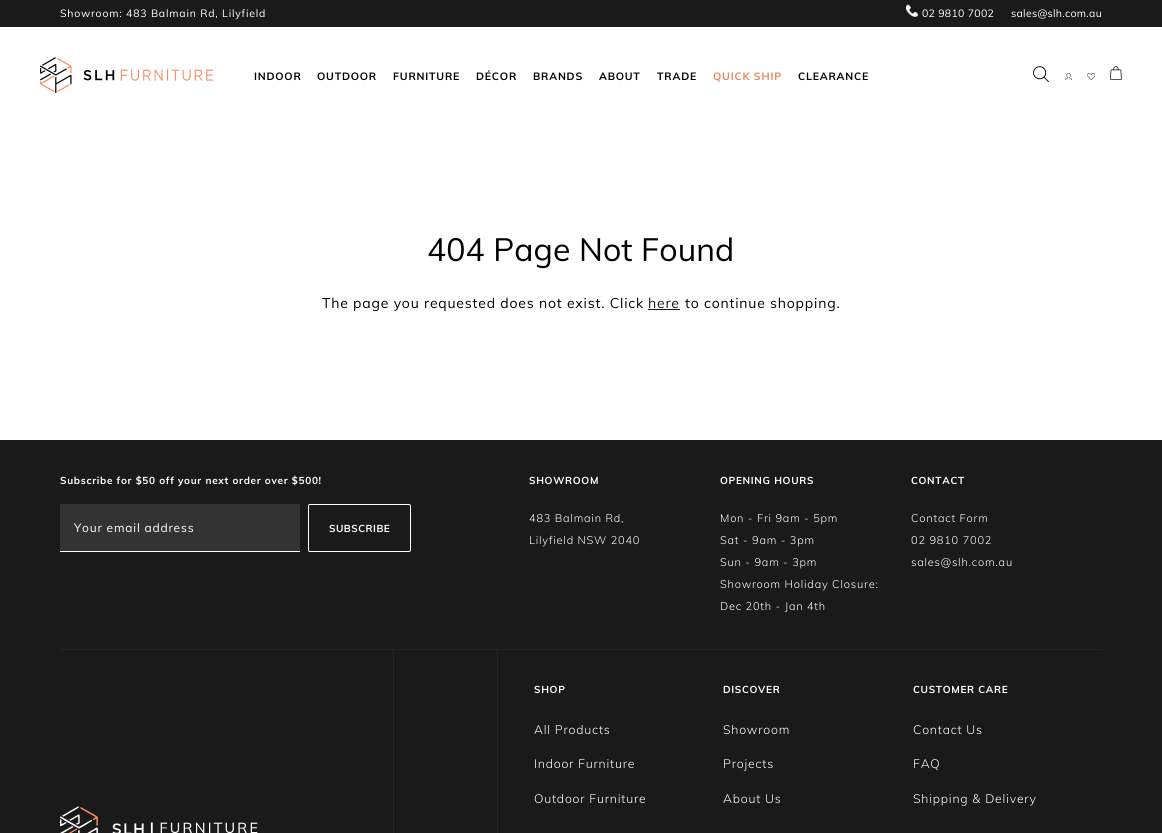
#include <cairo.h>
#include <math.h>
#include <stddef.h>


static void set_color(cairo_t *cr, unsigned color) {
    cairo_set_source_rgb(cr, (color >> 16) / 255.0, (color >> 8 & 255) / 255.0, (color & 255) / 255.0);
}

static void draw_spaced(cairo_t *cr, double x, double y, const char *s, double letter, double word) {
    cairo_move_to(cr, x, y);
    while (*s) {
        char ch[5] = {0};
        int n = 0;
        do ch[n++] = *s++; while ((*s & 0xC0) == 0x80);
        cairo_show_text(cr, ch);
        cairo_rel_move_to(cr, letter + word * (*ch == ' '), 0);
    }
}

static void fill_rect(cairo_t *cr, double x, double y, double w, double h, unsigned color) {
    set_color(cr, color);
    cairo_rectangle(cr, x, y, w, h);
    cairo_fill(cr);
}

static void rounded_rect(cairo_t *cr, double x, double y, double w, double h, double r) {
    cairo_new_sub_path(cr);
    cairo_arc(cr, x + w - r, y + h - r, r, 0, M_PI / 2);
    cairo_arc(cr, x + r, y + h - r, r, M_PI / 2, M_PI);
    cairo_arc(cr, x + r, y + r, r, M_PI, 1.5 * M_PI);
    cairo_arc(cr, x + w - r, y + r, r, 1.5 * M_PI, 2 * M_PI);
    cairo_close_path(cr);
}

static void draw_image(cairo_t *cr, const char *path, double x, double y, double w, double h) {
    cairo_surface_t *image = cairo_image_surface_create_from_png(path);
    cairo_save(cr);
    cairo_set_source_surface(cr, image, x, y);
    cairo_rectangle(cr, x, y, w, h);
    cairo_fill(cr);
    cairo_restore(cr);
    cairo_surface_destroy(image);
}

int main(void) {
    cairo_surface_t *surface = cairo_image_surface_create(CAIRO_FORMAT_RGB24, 1162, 833);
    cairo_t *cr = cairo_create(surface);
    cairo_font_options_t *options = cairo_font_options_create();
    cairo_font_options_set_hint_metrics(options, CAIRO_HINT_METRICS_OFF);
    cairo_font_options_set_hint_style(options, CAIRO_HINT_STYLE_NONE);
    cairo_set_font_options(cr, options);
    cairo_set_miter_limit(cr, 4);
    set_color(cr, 0xFFFFFF);
    cairo_paint(cr);
    fill_rect(cr, 0, 0, 1162, 27, 0x1A1A1A);
    cairo_select_font_face(cr, "Muli", CAIRO_FONT_SLANT_NORMAL, CAIRO_FONT_WEIGHT_NORMAL);
    cairo_set_font_size(cr, 10.5);
    set_color(cr, 0xFFFFFF);
    draw_spaced(cr, 60, 17, "Showroom: 483 Balmain Rd, Lilyfield", 0.8, 0);
    draw_image(cr, "assets/img1.png", 905, 4, 14, 13);
    draw_spaced(cr, 922, 17, "02 9810 7002", 0.3, 0);
    draw_spaced(cr, 1011, 17, "sales@slh.com.au", 0.3, 0);
    draw_image(cr, "assets/img2.png", 40, 57, 173, 36);
    cairo_select_font_face(cr, "Muli", CAIRO_FONT_SLANT_NORMAL, CAIRO_FONT_WEIGHT_BOLD);
    set_color(cr, 0x000000);
    draw_spaced(cr, 254, 80, "INDOOR", 0.8, 0);
    draw_spaced(cr, 317, 80, "OUTDOOR", 0.8, 0);
    draw_spaced(cr, 393, 80, "FURNITURE", 0.8, 0);
    draw_spaced(cr, 476, 80, "DÉCOR", 0.8, 0);
    draw_spaced(cr, 533, 80, "BRANDS", 0.8, 0);
    draw_spaced(cr, 599, 80, "ABOUT", 0.8, 0);
    draw_spaced(cr, 657, 80, "TRADE", 0.8, 0);
    set_color(cr, 0xE8845D);
    draw_spaced(cr, 713, 80, "QUICK SHIP", 0.8, 0);
    set_color(cr, 0x000000);
    draw_spaced(cr, 798, 80, "CLEARANCE", 0.8, 0);
    draw_image(cr, "assets/img3.png", 1033, 66, 16, 16);
    draw_image(cr, "assets/img4.png", 1065, 73, 7, 7);
    draw_image(cr, "assets/img5.png", 1087, 73, 8, 7);
    draw_image(cr, "assets/img6.png", 1110, 66, 12, 14);
    cairo_select_font_face(cr, "Muli", CAIRO_FONT_SLANT_NORMAL, CAIRO_FONT_WEIGHT_NORMAL);
    cairo_set_font_size(cr, 32);
    draw_spaced(cr, 427, 261, "404 Page Not Found", 0.1, 0);
    cairo_set_font_size(cr, 14);
    draw_spaced(cr, 322, 308, "The page you requested does not exist. Click", 0.8, 0);
    set_color(cr, 0x1A1A1A);
    draw_spaced(cr, 648, 308, "here", 0.8, 0);
    fill_rect(cr, 648, 309, 32, 1, 0x1A1A1A);
    set_color(cr, 0x000000);
    draw_spaced(cr, 685, 308, "to continue shopping.", 0.8, 0);
    fill_rect(cr, 0, 440, 1162, 393, 0x1A1A1A);
    cairo_select_font_face(cr, "Muli", CAIRO_FONT_SLANT_NORMAL, CAIRO_FONT_WEIGHT_BOLD);
    cairo_set_font_size(cr, 10);
    set_color(cr, 0xFFFFFF);
    draw_spaced(cr, 60, 484, "Subscribe for $50 off your next order over $500!", 0.7, 0);
    fill_rect(cr, 60, 504, 240, 47, 0x333333);
    fill_rect(cr, 60, 551, 240, 1, 0xFFFFFF);
    cairo_select_font_face(cr, "Muli", CAIRO_FONT_SLANT_NORMAL, CAIRO_FONT_WEIGHT_NORMAL);
    cairo_set_font_size(cr, 12);
    draw_spaced(cr, 74, 532, "Your email address", 0.8, 0);
    rounded_rect(cr, 308.5, 504.5, 102, 47, 1.5);
    cairo_set_line_width(cr, 1);
    cairo_stroke(cr);
    cairo_select_font_face(cr, "Muli", CAIRO_FONT_SLANT_NORMAL, CAIRO_FONT_WEIGHT_BOLD);
    cairo_set_font_size(cr, 10);
    draw_spaced(cr, 329, 532, "SUBSCRIBE", 0.5, 0);
    draw_spaced(cr, 529, 484, "SHOWROOM", 0.7, 0);
    cairo_select_font_face(cr, "Muli Light", CAIRO_FONT_SLANT_NORMAL, CAIRO_FONT_WEIGHT_NORMAL);
    cairo_set_font_size(cr, 11);
    draw_spaced(cr, 529, 522, "483 Balmain Rd,", 0.8, 0);
    draw_spaced(cr, 529, 544, "Lilyfield NSW 2040", 0.8, 0);
    cairo_select_font_face(cr, "Muli", CAIRO_FONT_SLANT_NORMAL, CAIRO_FONT_WEIGHT_BOLD);
    cairo_set_font_size(cr, 10);
    draw_spaced(cr, 720, 484, "OPENING HOURS", 0.7, 0);
    cairo_select_font_face(cr, "Muli Light", CAIRO_FONT_SLANT_NORMAL, CAIRO_FONT_WEIGHT_NORMAL);
    cairo_set_font_size(cr, 11);
    draw_spaced(cr, 720, 522, "Mon - Fri 9am - 5pm", 0.8, 0);
    draw_spaced(cr, 720, 544, "Sat - 9am - 3pm", 0.8, 0);
    draw_spaced(cr, 720, 566, "Sun - 9am - 3pm", 0.8, 0);
    draw_spaced(cr, 720, 588, "Showroom Holiday Closure:", 0.8, 0);
    draw_spaced(cr, 720, 610, "Dec 20th - Jan 4th", 0.8, 0);
    cairo_select_font_face(cr, "Muli", CAIRO_FONT_SLANT_NORMAL, CAIRO_FONT_WEIGHT_BOLD);
    cairo_set_font_size(cr, 10);
    draw_spaced(cr, 911, 484, "CONTACT", 0.7, 0);
    cairo_select_font_face(cr, "Muli Light", CAIRO_FONT_SLANT_NORMAL, CAIRO_FONT_WEIGHT_NORMAL);
    cairo_set_font_size(cr, 11);
    draw_spaced(cr, 911, 522, "Contact Form", 0.8, 0);
    draw_spaced(cr, 911, 544, "02 9810 7002", 0.8, 0);
    draw_spaced(cr, 911, 566, "sales@slh.com.au", 0.8, 0);
    fill_rect(cr, 60, 649, 333, 1, 0x252525);
    draw_image(cr, "assets/img7.png", 60, 806, 198, 27);
    cairo_rectangle(cr, 393.5, 649.5, 104, 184);
    cairo_stroke(cr);
    fill_rect(cr, 498, 649, 604, 1, 0x252525);
    cairo_select_font_face(cr, "Muli", CAIRO_FONT_SLANT_NORMAL, CAIRO_FONT_WEIGHT_BOLD);
    cairo_set_font_size(cr, 10);
    set_color(cr, 0xFFFFFF);
    draw_spaced(cr, 534, 693, "SHOP", 0.7, 0);
    cairo_select_font_face(cr, "Muli Light", CAIRO_FONT_SLANT_NORMAL, CAIRO_FONT_WEIGHT_NORMAL);
    cairo_set_font_size(cr, 12.25);
    draw_spaced(cr, 534, 734, "All Products", 0.8, 0);
    draw_spaced(cr, 534, 768, "Indoor Furniture", 0.8, 0);
    draw_spaced(cr, 534, 803, "Outdoor Furniture", 0.8, 0);
    cairo_select_font_face(cr, "Muli", CAIRO_FONT_SLANT_NORMAL, CAIRO_FONT_WEIGHT_BOLD);
    cairo_set_font_size(cr, 10);
    draw_spaced(cr, 723, 693, "DISCOVER", 0.7, 0);
    cairo_select_font_face(cr, "Muli Light", CAIRO_FONT_SLANT_NORMAL, CAIRO_FONT_WEIGHT_NORMAL);
    cairo_set_font_size(cr, 12.25);
    draw_spaced(cr, 723, 734, "Showroom", 0.8, 0);
    draw_spaced(cr, 723, 768, "Projects", 0.8, 0);
    draw_spaced(cr, 723, 803, "About Us", 0.8, 0);
    cairo_select_font_face(cr, "Muli", CAIRO_FONT_SLANT_NORMAL, CAIRO_FONT_WEIGHT_BOLD);
    cairo_set_font_size(cr, 10);
    draw_spaced(cr, 913, 693, "CUSTOMER CARE", 0.7, 0);
    cairo_select_font_face(cr, "Muli Light", CAIRO_FONT_SLANT_NORMAL, CAIRO_FONT_WEIGHT_NORMAL);
    cairo_set_font_size(cr, 12.25);
    draw_spaced(cr, 913, 734, "Contact Us", 0.8, 0);
    draw_spaced(cr, 913, 768, "FAQ", 0.8, 0);
    draw_spaced(cr, 913, 803, "Shipping & Delivery", 0.8, 0);
    cairo_surface_write_to_png(surface, "output.png");
    cairo_font_options_destroy(options);
    cairo_destroy(cr);
    cairo_surface_destroy(surface);
    return 0;
}
